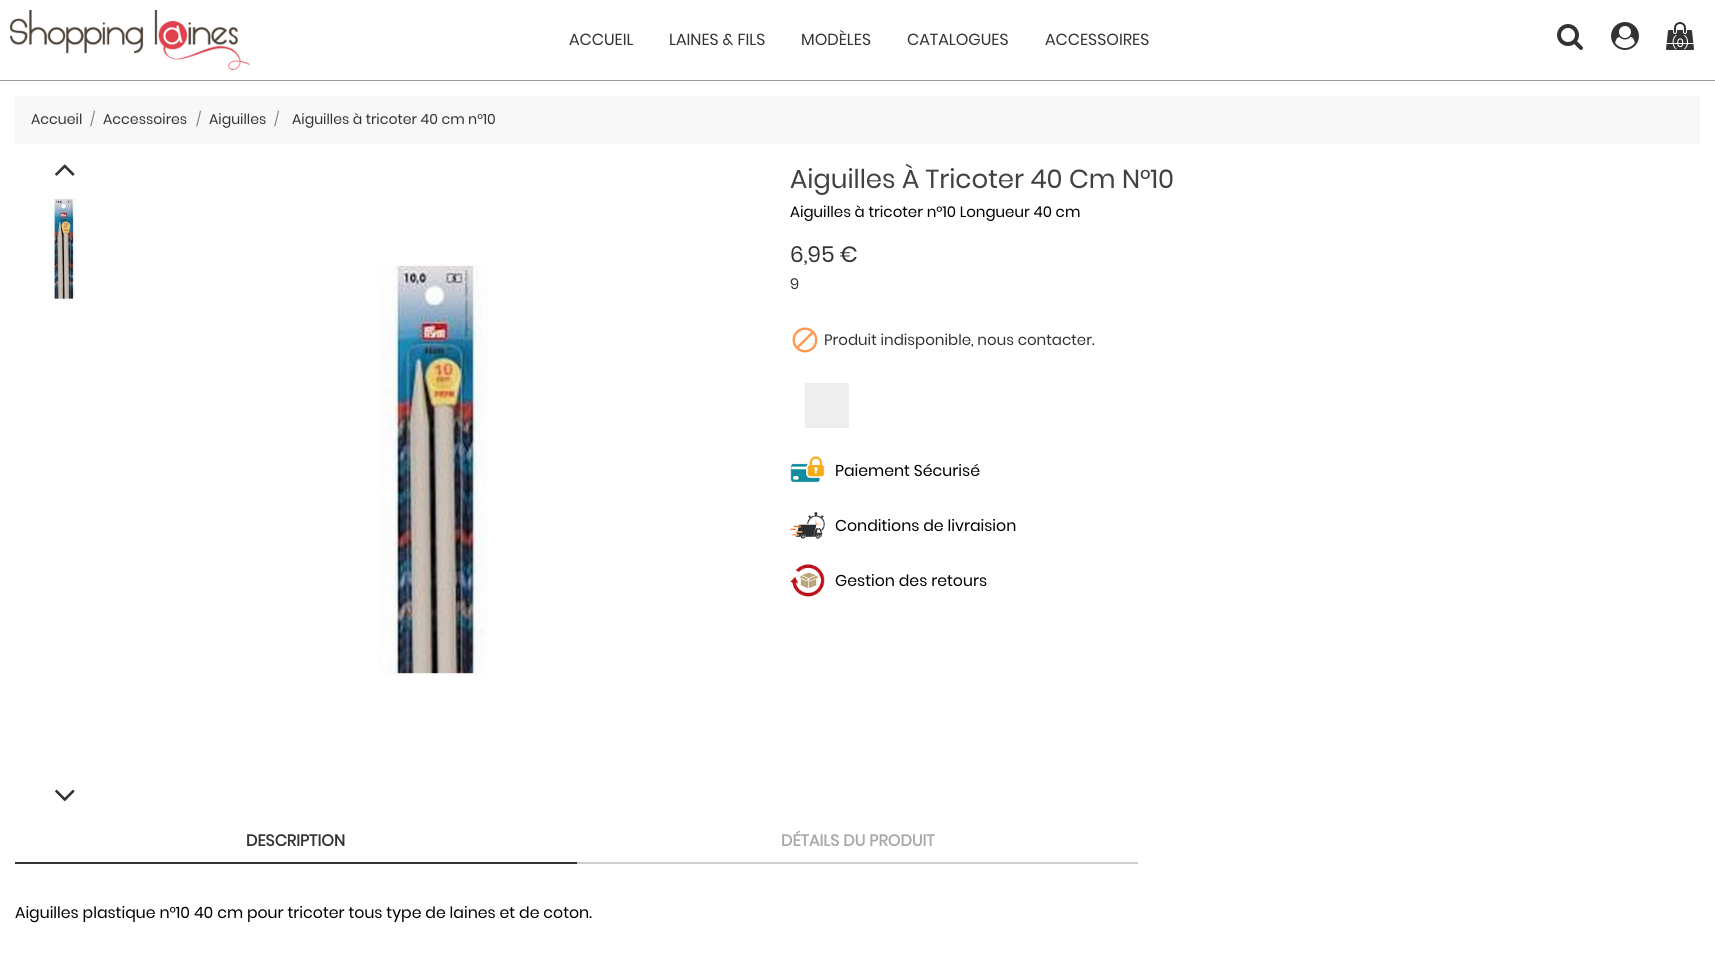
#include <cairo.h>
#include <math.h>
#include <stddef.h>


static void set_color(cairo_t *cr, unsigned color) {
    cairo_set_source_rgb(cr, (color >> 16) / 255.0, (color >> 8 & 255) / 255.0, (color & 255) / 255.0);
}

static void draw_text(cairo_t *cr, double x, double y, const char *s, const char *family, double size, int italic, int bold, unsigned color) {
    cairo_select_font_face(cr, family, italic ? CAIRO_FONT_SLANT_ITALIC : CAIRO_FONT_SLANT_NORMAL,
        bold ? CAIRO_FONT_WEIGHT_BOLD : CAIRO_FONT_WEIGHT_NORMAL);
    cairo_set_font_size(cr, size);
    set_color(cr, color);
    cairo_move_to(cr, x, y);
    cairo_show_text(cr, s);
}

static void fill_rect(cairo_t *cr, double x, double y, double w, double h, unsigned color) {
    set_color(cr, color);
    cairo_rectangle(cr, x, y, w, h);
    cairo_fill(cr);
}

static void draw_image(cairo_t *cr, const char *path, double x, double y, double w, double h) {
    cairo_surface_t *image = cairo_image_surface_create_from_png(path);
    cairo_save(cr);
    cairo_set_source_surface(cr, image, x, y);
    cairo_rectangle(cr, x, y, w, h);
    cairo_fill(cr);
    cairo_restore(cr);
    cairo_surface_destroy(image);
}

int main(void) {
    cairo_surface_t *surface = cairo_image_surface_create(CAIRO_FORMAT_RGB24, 1715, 953);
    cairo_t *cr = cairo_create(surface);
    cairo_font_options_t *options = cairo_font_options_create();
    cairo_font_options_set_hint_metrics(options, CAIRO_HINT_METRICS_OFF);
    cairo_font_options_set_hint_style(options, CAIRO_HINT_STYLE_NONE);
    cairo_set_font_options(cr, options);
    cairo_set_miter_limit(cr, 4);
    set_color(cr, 0xFFFFFF);
    cairo_paint(cr);
    fill_rect(cr, 0, 80, 1715, 1, 0x999999);
    draw_image(cr, "assets/img1.png", 10, 10, 240, 60);
    draw_text(cr, 569, 45, "ACCUEIL", "Poppins", 16, 0, 0, 0x333333);
    draw_text(cr, 669, 45, "LAINES & FILS", "Poppins", 16, 0, 0, 0x333333);
    draw_text(cr, 801, 45, "MODÈLES", "Poppins", 16, 0, 0, 0x333333);
    draw_text(cr, 907, 45, "CATALOGUES", "Poppins", 16, 0, 0, 0x333333);
    draw_text(cr, 1045, 45, "ACCESSOIRES", "Poppins", 16, 0, 0, 0x333333);
    draw_image(cr, "assets/img2.png", 1557, 24, 26, 26);
    draw_image(cr, "assets/img3.png", 1611, 22, 28, 28);
    draw_image(cr, "assets/img4.png", 1666, 22, 28, 28);
    draw_text(cr, 1672, 47, "(0)", "Poppins", 12, 0, 0, 0xFFFFFF);
    fill_rect(cr, 15, 96, 1685, 48, 0xF8F8F8);
    draw_text(cr, 31, 124, "Accueil", "Poppins", 14.1, 0, 0, 0x333333);
    draw_text(cr, 90, 124, "/", "Poppins", 14.1, 0, 0, 0x878787);
    draw_text(cr, 103, 124, "Accessoires", "Poppins", 14.1, 0, 0, 0x333333);
    draw_text(cr, 196, 124, "/", "Poppins", 14.1, 0, 0, 0x878787);
    draw_text(cr, 209, 124, "Aiguilles", "Poppins", 14.1, 0, 0, 0x333333);
    draw_text(cr, 274, 124, "/", "Poppins", 14.1, 0, 0, 0x878787);
    draw_text(cr, 292, 124, "Aiguilles à tricoter 40 cm n°10", "Poppins", 14.1, 0, 0, 0x333333);
    draw_image(cr, "assets/img5.png", 55, 164, 20, 12);
    draw_image(cr, "assets/img6.png", 55, 789, 20, 13);
    draw_image(cr, "assets/img7.png", 49, 199, 28, 100);
    draw_image(cr, "assets/img8.png", 379, 264, 109, 412);
    draw_text(cr, 790, 188, "Aiguilles À Tricoter 40 Cm N°10", "Poppins", 26, 0, 0, 0x414141);
    draw_text(cr, 790, 217, "Aiguilles à tricoter n°10 Longueur 40 cm", "Poppins", 15, 0, 0, 0x000000);
    draw_text(cr, 790, 262, "6,95 €", "Poppins", 22, 0, 0, 0x333333);
    draw_text(cr, 790, 289, "9", "Poppins", 15, 0, 0, 0x333333);
    draw_image(cr, "assets/img9.png", 792, 327, 26, 26);
    draw_text(cr, 824, 345, "Produit indisponible, nous contacter.", "Poppins", 15, 0, 0, 0x333333);
    fill_rect(cr, 805, 383, 44, 45, 0xEEEEEE);
    draw_image(cr, "assets/img10.png", 790, 456, 35, 27);
    draw_text(cr, 835, 476, "Paiement Sécurisé", "Poppins", 15.7, 0, 0, 0x000000);
    draw_image(cr, "assets/img11.png", 790, 512, 35, 27);
    draw_text(cr, 835, 531, "Conditions de livraision", "Poppins", 15.7, 0, 0, 0x000000);
    draw_image(cr, "assets/img12.png", 790, 564, 35, 33);
    draw_text(cr, 835, 586, "Gestion des retours", "Poppins", 15.7, 0, 0, 0x000000);
    fill_rect(cr, 15, 862, 562, 2, 0x333333);
    draw_text(cr, 246, 846, "DESCRIPTION", "Poppins", 16, 0, 1, 0x333333);
    fill_rect(cr, 577, 862, 561, 2, 0xCECECE);
    draw_text(cr, 781, 846, "DÉTAILS DU PRODUIT", "Poppins", 16, 0, 1, 0xA9A9A9);
    draw_text(cr, 15, 918, "Aiguilles plastique n°10 40 cm pour tricoter tous type de laines et de coton.", "Poppins", 15.7, 0, 0, 0x000000);
    cairo_surface_write_to_png(surface, "output.png");
    cairo_font_options_destroy(options);
    cairo_destroy(cr);
    cairo_surface_destroy(surface);
    return 0;
}
